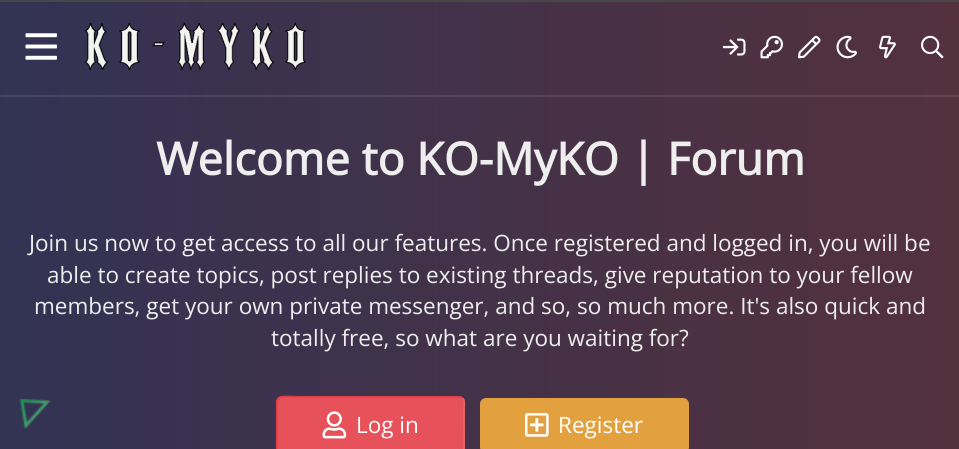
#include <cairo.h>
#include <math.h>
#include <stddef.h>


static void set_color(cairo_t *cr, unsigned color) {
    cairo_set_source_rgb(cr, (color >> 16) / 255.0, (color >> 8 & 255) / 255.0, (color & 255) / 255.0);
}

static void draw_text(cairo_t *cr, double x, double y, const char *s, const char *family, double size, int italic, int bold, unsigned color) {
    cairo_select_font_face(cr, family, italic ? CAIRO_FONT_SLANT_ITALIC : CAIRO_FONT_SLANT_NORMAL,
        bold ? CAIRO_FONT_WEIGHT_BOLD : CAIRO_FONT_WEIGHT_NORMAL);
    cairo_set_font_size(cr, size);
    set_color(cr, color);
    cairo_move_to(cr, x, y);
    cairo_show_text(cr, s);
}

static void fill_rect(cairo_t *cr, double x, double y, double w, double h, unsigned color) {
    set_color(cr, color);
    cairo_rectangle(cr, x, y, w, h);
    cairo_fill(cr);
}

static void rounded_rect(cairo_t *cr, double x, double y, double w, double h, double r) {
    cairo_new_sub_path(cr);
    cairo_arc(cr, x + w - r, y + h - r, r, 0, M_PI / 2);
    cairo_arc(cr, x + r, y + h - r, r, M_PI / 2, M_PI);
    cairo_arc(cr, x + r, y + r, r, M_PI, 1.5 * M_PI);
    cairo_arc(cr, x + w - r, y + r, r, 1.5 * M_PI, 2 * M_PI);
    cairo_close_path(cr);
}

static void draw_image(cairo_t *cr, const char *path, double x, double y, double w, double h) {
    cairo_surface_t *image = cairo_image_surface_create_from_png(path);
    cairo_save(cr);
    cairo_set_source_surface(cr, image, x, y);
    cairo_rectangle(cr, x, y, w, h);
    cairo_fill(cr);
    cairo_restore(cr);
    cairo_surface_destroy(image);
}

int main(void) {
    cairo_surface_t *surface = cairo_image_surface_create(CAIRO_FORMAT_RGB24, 959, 449);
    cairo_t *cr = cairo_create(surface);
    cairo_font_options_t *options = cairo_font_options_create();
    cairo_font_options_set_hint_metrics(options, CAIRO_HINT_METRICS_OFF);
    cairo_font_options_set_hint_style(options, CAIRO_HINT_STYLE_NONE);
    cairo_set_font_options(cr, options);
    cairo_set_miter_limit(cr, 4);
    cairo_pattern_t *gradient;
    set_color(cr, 0x303030);
    cairo_paint(cr);
    fill_rect(cr, 0, 0, 959, 2, 0x474747);
    draw_image(cr, "assets/img11.png", 19, 399, 32, 30);
    gradient = cairo_pattern_create_linear(0, -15, 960, -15);
    cairo_pattern_add_color_stop_rgba(gradient, 0, 0.243, 0.247, 0.902, 0.2);
    cairo_pattern_add_color_stop_rgba(gradient, 1, 0.898, 0.208, 0.451, 0.2);
    cairo_set_source(cr, gradient);
    cairo_pattern_destroy(gradient);
    cairo_rectangle(cr, 0, 2, 959, 447);
    cairo_fill(cr);
    cairo_set_source_rgba(cr, 1, 1, 1, 0.1);
    cairo_rectangle(cr, 0, 95, 959, 2);
    cairo_fill(cr);
    draw_image(cr, "assets/img1.png", 25, 33, 32, 27);
    draw_image(cr, "assets/img2.png", 84, 22, 222, 49);
    draw_image(cr, "assets/img3.png", 723, 38, 23, 18);
    draw_image(cr, "assets/img4.png", 760, 35, 23, 24);
    draw_image(cr, "assets/img5.png", 798, 35, 23, 24);
    draw_image(cr, "assets/img6.png", 836, 35, 21, 24);
    draw_image(cr, "assets/img7.png", 879, 35, 17, 24);
    draw_image(cr, "assets/img8.png", 921, 35, 23, 24);
    draw_text(cr, 156, 175, "Welcome to KO-MyKO | Forum", "Open Sans", 45, 0, 1, 0xEEEEEE);
    draw_text(cr, 29, 251, "Join us now to get access to all our features. Once registered and logged in, you will be", "Open Sans", 22.5, 0, 0, 0xEEEEEE);
    draw_text(cr, 47, 283, "able to create topics, post replies to existing threads, give reputation to your fellow", "Open Sans", 22.5, 0, 0, 0xEEEEEE);
    draw_text(cr, 34, 314, "members, get your own private messenger, and so, so much more. It's also quick and", "Open Sans", 22.5, 0, 0, 0xEEEEEE);
    draw_text(cr, 271, 346, "totally free, so what are you waiting for?", "Open Sans", 22.5, 0, 0, 0xEEEEEE);
    set_color(cr, 0xE7515A);
    rounded_rect(cr, 276, 396, 189, 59, 6);
    cairo_fill(cr);
    cairo_new_path(cr);
    cairo_move_to(cr, 462.5, 398.5);
    cairo_curve_to(cr, 465.5, 401, 464, 407, 464, 410);
    cairo_line_to(cr, 464, 425);
    cairo_curve_to(cr, 464, 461, 469.5, 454, 429.5, 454);
    cairo_line_to(cr, 282, 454);
    cairo_curve_to(cr, 280.5, 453.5, 279.5, 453, 278.5, 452);
    set_color(cr, 0xEA676F);
    cairo_set_line_width(cr, 1.5);
    cairo_stroke(cr);
    cairo_new_path(cr);
    cairo_move_to(cr, 278.5, 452);
    cairo_curve_to(cr, 275.5, 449.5, 277, 443.5, 277, 441);
    cairo_line_to(cr, 277, 425);
    cairo_curve_to(cr, 277, 389.5, 271.5, 397, 311.5, 397);
    cairo_line_to(cr, 459, 397);
    cairo_curve_to(cr, 460.5, 397, 461.5, 397.5, 462.5, 398.5);
    set_color(cr, 0xE43B45);
    cairo_stroke(cr);
    draw_image(cr, "assets/img9.png", 322, 411, 25, 28);
    draw_text(cr, 356, 433, "Log in", "Open Sans", 22.5, 0, 0, 0xFFFFFF);
    set_color(cr, 0xE2A03F);
    rounded_rect(cr, 480, 398, 209, 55, 6);
    cairo_fill(cr);
    draw_image(cr, "assets/img10.png", 525, 413, 24, 24);
    draw_text(cr, 558, 433, "Register", "Open Sans", 22.5, 0, 0, 0xFFFFFF);
    cairo_surface_write_to_png(surface, "output.png");
    cairo_font_options_destroy(options);
    cairo_destroy(cr);
    cairo_surface_destroy(surface);
    return 0;
}
